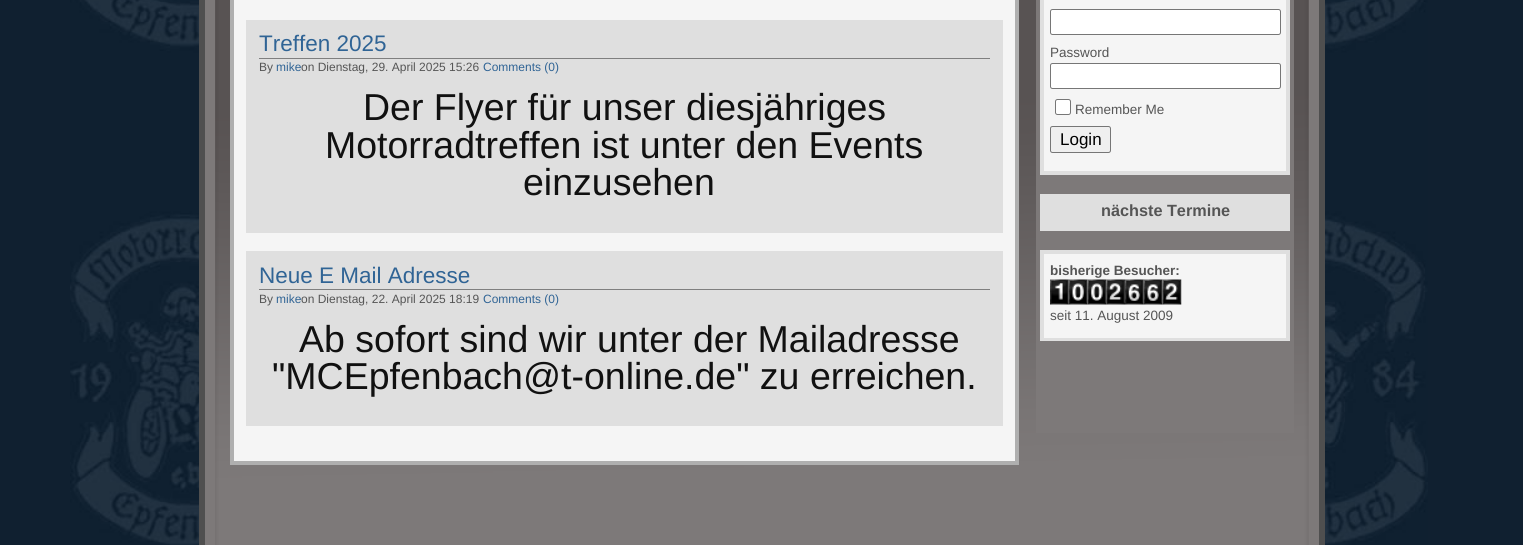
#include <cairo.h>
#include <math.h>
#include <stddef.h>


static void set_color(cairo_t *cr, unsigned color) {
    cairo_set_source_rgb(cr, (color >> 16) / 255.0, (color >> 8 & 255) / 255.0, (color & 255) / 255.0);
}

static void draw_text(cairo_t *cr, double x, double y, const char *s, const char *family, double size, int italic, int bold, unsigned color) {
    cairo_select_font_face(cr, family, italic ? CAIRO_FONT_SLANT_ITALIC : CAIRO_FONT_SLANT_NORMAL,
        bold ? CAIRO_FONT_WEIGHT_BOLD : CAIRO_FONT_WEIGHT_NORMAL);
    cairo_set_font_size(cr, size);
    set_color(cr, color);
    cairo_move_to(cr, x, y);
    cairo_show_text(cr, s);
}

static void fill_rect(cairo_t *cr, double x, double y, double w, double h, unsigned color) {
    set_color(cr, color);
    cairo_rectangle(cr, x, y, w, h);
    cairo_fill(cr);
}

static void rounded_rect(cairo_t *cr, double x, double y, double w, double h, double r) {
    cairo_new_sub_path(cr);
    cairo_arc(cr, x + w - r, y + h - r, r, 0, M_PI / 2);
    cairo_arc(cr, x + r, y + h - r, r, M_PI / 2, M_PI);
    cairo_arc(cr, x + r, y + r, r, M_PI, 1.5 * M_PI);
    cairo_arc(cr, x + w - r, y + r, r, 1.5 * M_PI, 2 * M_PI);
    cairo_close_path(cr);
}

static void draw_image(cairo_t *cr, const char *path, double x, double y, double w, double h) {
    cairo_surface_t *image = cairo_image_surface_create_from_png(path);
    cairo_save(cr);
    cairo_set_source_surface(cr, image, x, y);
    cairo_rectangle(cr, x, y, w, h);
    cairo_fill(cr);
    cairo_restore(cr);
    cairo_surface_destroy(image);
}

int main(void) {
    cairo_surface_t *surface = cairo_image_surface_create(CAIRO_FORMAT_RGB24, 1523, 545);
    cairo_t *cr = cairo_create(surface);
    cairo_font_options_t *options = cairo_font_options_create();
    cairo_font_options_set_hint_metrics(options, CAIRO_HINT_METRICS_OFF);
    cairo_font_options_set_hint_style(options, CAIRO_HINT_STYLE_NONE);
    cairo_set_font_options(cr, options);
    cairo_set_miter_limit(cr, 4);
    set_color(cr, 0x102030);
    cairo_paint(cr);
    draw_image(cr, "assets/img1.png", 70, 0, 1358, 545);
    cairo_rectangle(cr, 202, -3, 1120, 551);
    set_color(cr, 0x4F4F4F);
    cairo_set_line_width(cr, 6);
    cairo_stroke(cr);
    fill_rect(cr, 205, 0, 1114, 545, 0x7D7979);
    draw_image(cr, "assets/img2.png", 215, 0, 1094, 545);
    set_color(cr, 0xF5F5F5);
    cairo_rectangle(cr, 232, -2, 785, 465);
    cairo_fill_preserve(cr);
    set_color(cr, 0xAFAFAF);
    cairo_set_line_width(cr, 4);
    cairo_stroke(cr);
    fill_rect(cr, 246, 20, 757, 213, 0xDFDFDF);
    fill_rect(cr, 259, 58, 731, 1, 0x7F7F7F);
    draw_text(cr, 259, 51, "Treffen 2025", "Liberation Sans", 22.5, 0, 0, 0x306495);
    draw_text(cr, 259, 71, "By", "Liberation Sans", 12, 0, 0, 0x555555);
    draw_text(cr, 276, 71, "mike", "Liberation Sans", 12, 0, 0, 0x306495);
    draw_text(cr, 301, 71, "on Dienstag, 29. April 2025 15:26", "Liberation Sans", 12, 0, 0, 0x555555);
    draw_text(cr, 483, 71, "Comments (0)", "Liberation Sans", 12, 0, 0, 0x306495);
    draw_text(cr, 363, 120, "Der Flyer für unser diesjähriges", "Liberation Sans", 37.5, 0, 0, 0x111111);
    draw_text(cr, 325, 158, "Motorradtreffen ist unter den Events", "Liberation Sans", 37.5, 0, 0, 0x111111);
    draw_text(cr, 523, 195, "einzusehen", "Liberation Sans", 37.5, 0, 0, 0x111111);
    fill_rect(cr, 246, 251, 757, 175, 0xDFDFDF);
    fill_rect(cr, 259, 289, 731, 1, 0x7F7F7F);
    draw_text(cr, 259, 283, "Neue E Mail Adresse", "Liberation Sans", 22.5, 0, 0, 0x306495);
    draw_text(cr, 259, 303, "By", "Liberation Sans", 12, 0, 0, 0x555555);
    draw_text(cr, 276, 303, "mike", "Liberation Sans", 12, 0, 0, 0x306495);
    draw_text(cr, 301, 303, "on Dienstag, 22. April 2025 18:19", "Liberation Sans", 12, 0, 0, 0x555555);
    draw_text(cr, 483, 303, "Comments (0)", "Liberation Sans", 12, 0, 0, 0x306495);
    draw_text(cr, 299, 352, "Ab sofort sind wir unter der Mailadresse", "Liberation Sans", 37.5, 0, 0, 0x111111);
    draw_text(cr, 272, 389, "\"MCEpfenbach@t-online.de\" zu erreichen.", "Liberation Sans", 37.5, 0, 0, 0x111111);
    fill_rect(cr, 1036, 0, 258, 433, 0x7D7979);
    fill_rect(cr, 1040, 0, 250, 175, 0xDFDFDF);
    fill_rect(cr, 1044, 0, 242, 171, 0xF5F5F5);
    set_color(cr, 0xFFFFFF);
    rounded_rect(cr, 1050.5, 9.5, 230, 25, 2);
    cairo_fill_preserve(cr);
    set_color(cr, 0x767676);
    cairo_set_line_width(cr, 1);
    cairo_stroke(cr);
    draw_text(cr, 1050, 57, "Password", "Liberation Sans", 13.5, 0, 0, 0x555555);
    set_color(cr, 0xFFFFFF);
    rounded_rect(cr, 1050.5, 63.5, 230, 25, 2);
    cairo_fill_preserve(cr);
    set_color(cr, 0x767676);
    cairo_stroke(cr);
    set_color(cr, 0xFFFFFF);
    rounded_rect(cr, 1055.5, 99.5, 15, 15, 2);
    cairo_fill_preserve(cr);
    set_color(cr, 0x767676);
    cairo_stroke(cr);
    draw_text(cr, 1075, 114, "Remember Me", "Liberation Sans", 13.5, 0, 0, 0x555555);
    set_color(cr, 0xEFEFEF);
    rounded_rect(cr, 1050.5, 126.5, 60, 26, 2);
    cairo_fill_preserve(cr);
    set_color(cr, 0x767676);
    cairo_stroke(cr);
    draw_text(cr, 1060, 145, "Login", "Liberation Sans", 17, 0, 0, 0x000000);
    fill_rect(cr, 1040, 194, 250, 37, 0xDFDFDF);
    draw_text(cr, 1101, 216, "nächste Termine", "Liberation Sans", 16.25, 0, 1, 0x555555);
    fill_rect(cr, 1040, 250, 250, 91, 0xDFDFDF);
    fill_rect(cr, 1044, 254, 242, 84, 0xF5F5F5);
    draw_text(cr, 1050, 275, "bisherige Besucher:", "Liberation Sans", 13.5, 0, 1, 0x555555);
    draw_image(cr, "assets/img3.png", 1050, 279, 19, 26);
    draw_image(cr, "assets/img4.png", 1068, 279, 20, 26);
    draw_image(cr, "assets/img5.png", 1087, 279, 20, 26);
    draw_image(cr, "assets/img6.png", 1106, 279, 19, 26);
    draw_image(cr, "assets/img7.png", 1125, 279, 19, 26);
    draw_image(cr, "assets/img8.png", 1143, 279, 20, 26);
    draw_image(cr, "assets/img9.png", 1162, 279, 20, 26);
    draw_text(cr, 1050, 320, "seit 11. August 2009", "Liberation Sans", 13.5, 0, 0, 0x555555);
    cairo_surface_write_to_png(surface, "output.png");
    cairo_font_options_destroy(options);
    cairo_destroy(cr);
    cairo_surface_destroy(surface);
    return 0;
}
